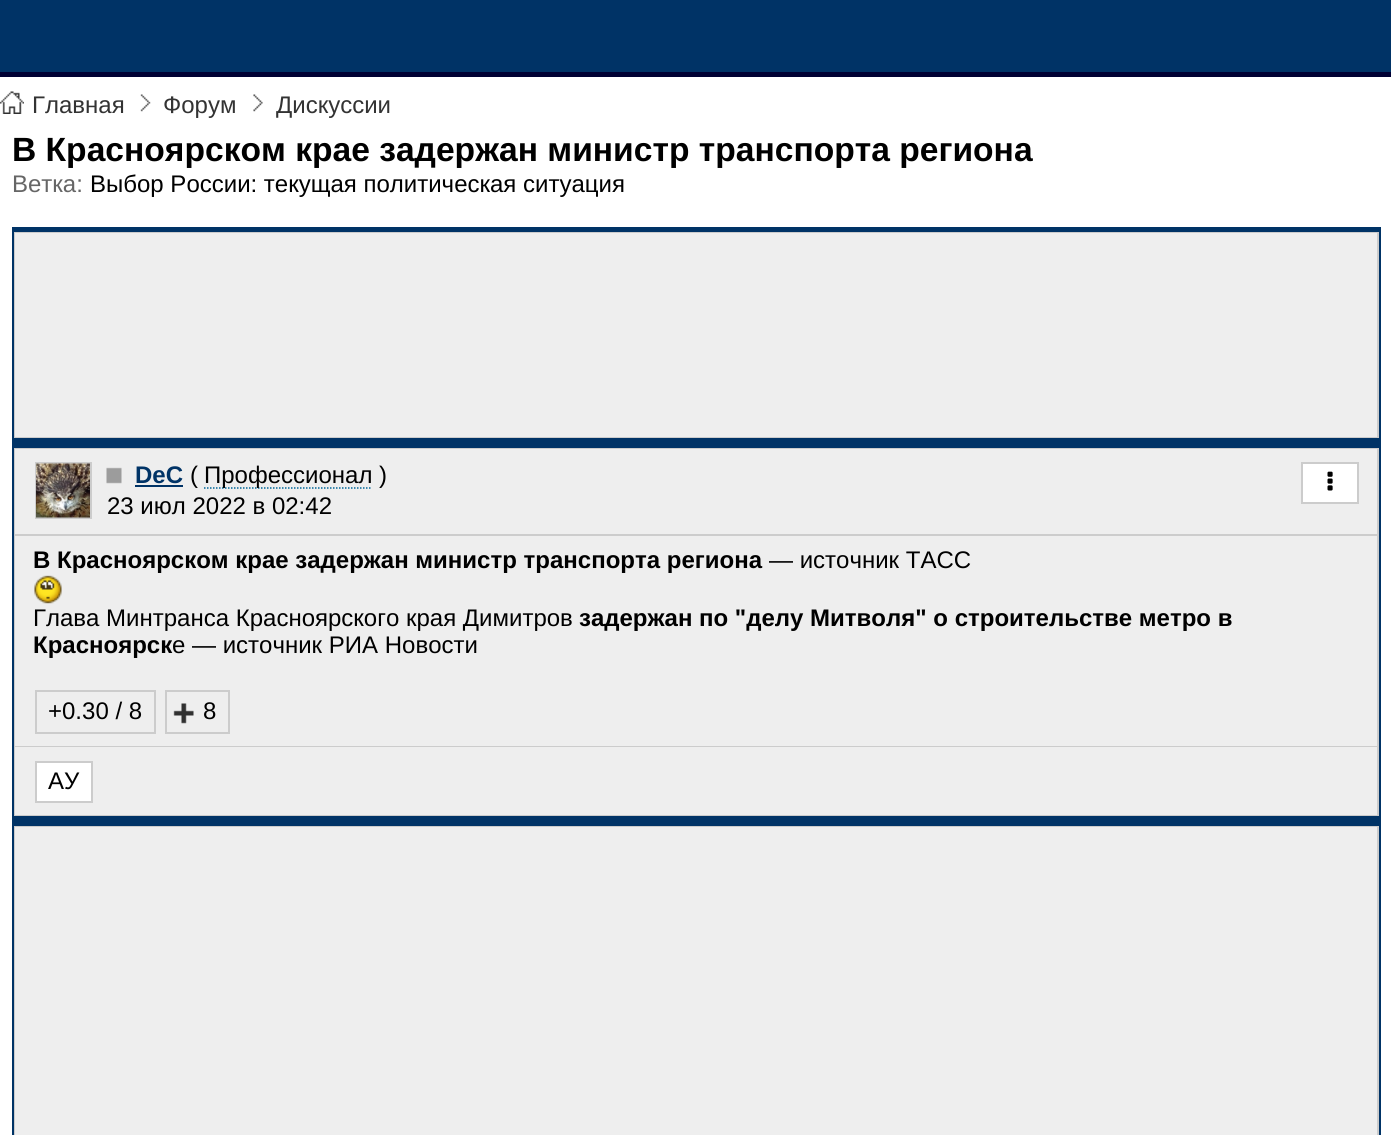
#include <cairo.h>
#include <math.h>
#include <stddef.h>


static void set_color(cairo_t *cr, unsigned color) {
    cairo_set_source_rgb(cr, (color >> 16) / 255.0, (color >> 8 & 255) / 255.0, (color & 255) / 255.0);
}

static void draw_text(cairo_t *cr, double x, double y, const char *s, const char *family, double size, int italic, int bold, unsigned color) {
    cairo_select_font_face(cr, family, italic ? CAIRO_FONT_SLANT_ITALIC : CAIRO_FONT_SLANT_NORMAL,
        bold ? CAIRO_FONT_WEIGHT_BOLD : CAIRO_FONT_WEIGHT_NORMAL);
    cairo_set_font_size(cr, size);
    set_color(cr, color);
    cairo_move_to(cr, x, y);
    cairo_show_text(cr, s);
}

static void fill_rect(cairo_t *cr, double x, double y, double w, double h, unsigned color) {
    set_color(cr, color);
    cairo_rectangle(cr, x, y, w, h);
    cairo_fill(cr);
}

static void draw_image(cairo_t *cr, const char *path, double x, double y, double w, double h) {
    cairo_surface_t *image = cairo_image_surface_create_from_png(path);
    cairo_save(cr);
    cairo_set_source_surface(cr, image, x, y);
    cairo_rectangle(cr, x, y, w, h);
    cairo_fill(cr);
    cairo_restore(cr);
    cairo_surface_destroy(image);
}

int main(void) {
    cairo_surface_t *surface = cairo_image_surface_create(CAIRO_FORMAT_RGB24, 1391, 1135);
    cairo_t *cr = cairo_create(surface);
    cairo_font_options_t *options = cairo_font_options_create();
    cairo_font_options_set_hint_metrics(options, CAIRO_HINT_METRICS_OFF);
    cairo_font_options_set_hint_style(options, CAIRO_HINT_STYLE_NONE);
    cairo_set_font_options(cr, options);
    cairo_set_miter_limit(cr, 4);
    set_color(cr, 0xFFFFFF);
    cairo_paint(cr);
    fill_rect(cr, 0, 0, 1391, 72, 0x003366);
    fill_rect(cr, 0, 72, 1391, 5, 0x000033);
    draw_image(cr, "assets/img1.png", 0, 91, 24, 23);
    draw_text(cr, 32, 113, "Главная", "Liberation Sans", 24, 0, 0, 0x333333);
    draw_image(cr, "assets/img2.png", 140, 94, 11, 18);
    draw_text(cr, 163, 113, "Форум", "Liberation Sans", 24, 0, 0, 0x333333);
    draw_image(cr, "assets/img3.png", 253, 94, 10, 18);
    draw_text(cr, 276, 113, "Дискуссии", "Liberation Sans", 24, 0, 0, 0x333333);
    draw_text(cr, 12, 161, "В Красноярском крае задержан министр транспорта региона", "Liberation Sans", 33.6, 0, 1, 0x000000);
    draw_text(cr, 12, 192, "Ветка:", "Liberation Sans", 24, 0, 0, 0x666666);
    draw_text(cr, 90, 192, "Выбор России: текущая политическая ситуация", "Liberation Sans", 24, 0, 0, 0x000000);
    fill_rect(cr, 14, 232, 1365, 206, 0xCCCCCC);
    fill_rect(cr, 12, 227, 1368, 5, 0x003366);
    fill_rect(cr, 1379, 227, 2, 216, 0x003366);
    fill_rect(cr, 12, 438, 1368, 10, 0x003366);
    fill_rect(cr, 12, 227, 2, 216, 0x003366);
    fill_rect(cr, 15, 233, 1362, 204, 0xEEEEEE);
    fill_rect(cr, 14, 448, 1365, 368, 0xCCCCCC);
    fill_rect(cr, 1379, 443, 2, 378, 0x003366);
    fill_rect(cr, 12, 816, 1368, 10, 0x003366);
    fill_rect(cr, 12, 443, 2, 692, 0x003366);
    fill_rect(cr, 15, 449, 1362, 85, 0xEEEEEE);
    cairo_rectangle(cr, 36, 463, 55, 55);
    set_color(cr, 0xCCCCCC);
    cairo_stroke(cr);
    draw_image(cr, "assets/img4.png", 36, 463, 54, 55);
    draw_image(cr, "assets/img5.png", 106, 467, 16, 17);
    draw_text(cr, 135, 483, "DeC", "Liberation Sans", 24, 0, 1, 0x003366);
    fill_rect(cr, 135, 485, 48, 2, 0x003366);
    draw_text(cr, 190, 483, "(", "Liberation Sans", 24, 0, 0, 0x000000);
    cairo_new_path(cr);
    cairo_move_to(cr, 204, 488);
    cairo_line_to(cr, 372, 488);
    set_color(cr, 0x006699);
    cairo_set_line_width(cr, 1.5);
    cairo_set_dash(cr, (double[]){1.5, 1.5}, 2, 0);
    cairo_stroke(cr);
    draw_text(cr, 204, 483, "Профессионал )", "Liberation Sans", 24, 0, 0, 0x000000);
    draw_text(cr, 107, 514, "23 июл 2022 в 02:42", "Liberation Sans", 24, 0, 0, 0x000000);
    set_color(cr, 0xFFFFFF);
    cairo_rectangle(cr, 1302, 463, 56, 40);
    cairo_fill_preserve(cr);
    set_color(cr, 0xCCCCCC);
    cairo_set_line_width(cr, 2);
    cairo_set_dash(cr, NULL, 0, 0);
    cairo_stroke(cr);
    draw_image(cr, "assets/img6.png", 1327, 471, 6, 20);
    fill_rect(cr, 15, 536, 1362, 210, 0xEEEEEE);
    draw_text(cr, 33, 568, "В Красноярском крае задержан министр транспорта региона", "Liberation Sans", 24, 0, 1, 0x000000);
    draw_text(cr, 769, 568, "— источник ТАСС", "Liberation Sans", 24, 0, 0, 0x000000);
    draw_image(cr, "assets/img7.png", 34, 575, 28, 29);
    draw_text(cr, 33, 626, "Глава Минтранса Красноярского края Димитров", "Liberation Sans", 24, 0, 0, 0x000000);
    draw_text(cr, 579, 626, "задержан по \"делу Митволя\" о строительстве метро в", "Liberation Sans", 24, 0, 1, 0x000000);
    draw_text(cr, 33, 653, "Красноярск", "Liberation Sans", 24, 0, 1, 0x000000);
    draw_text(cr, 172, 653, "е — источник РИА Новости", "Liberation Sans", 24, 0, 0, 0x000000);
    cairo_rectangle(cr, 36, 691, 119, 42);
    set_color(cr, 0xCCCCCC);
    cairo_stroke(cr);
    draw_text(cr, 48, 719, "+0.30 / 8", "Liberation Sans", 24, 0, 0, 0x000000);
    cairo_rectangle(cr, 166, 691, 63, 42);
    set_color(cr, 0xCCCCCC);
    cairo_stroke(cr);
    draw_image(cr, "assets/img8.png", 173, 703, 21, 21);
    draw_text(cr, 203, 719, "8", "Liberation Sans", 24, 0, 0, 0x000000);
    fill_rect(cr, 15, 747, 1362, 68, 0xEEEEEE);
    set_color(cr, 0xFFFFFF);
    cairo_rectangle(cr, 36, 762, 56, 40);
    cairo_fill_preserve(cr);
    set_color(cr, 0xCCCCCC);
    cairo_stroke(cr);
    draw_text(cr, 48, 789, "АУ", "Liberation Sans", 24, 0, 0, 0x000000);
    fill_rect(cr, 14, 826, 1365, 309, 0xCCCCCC);
    fill_rect(cr, 1379, 821, 2, 314, 0x003366);
    fill_rect(cr, 15, 827, 1362, 308, 0xEEEEEE);
    cairo_surface_write_to_png(surface, "output.png");
    cairo_font_options_destroy(options);
    cairo_destroy(cr);
    cairo_surface_destroy(surface);
    return 0;
}
